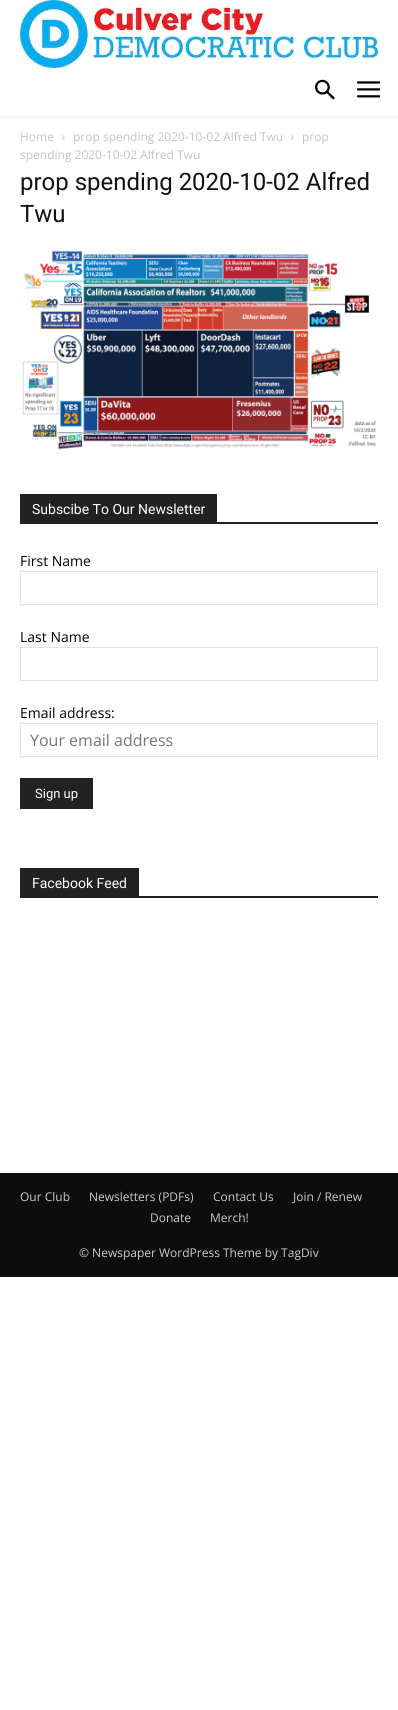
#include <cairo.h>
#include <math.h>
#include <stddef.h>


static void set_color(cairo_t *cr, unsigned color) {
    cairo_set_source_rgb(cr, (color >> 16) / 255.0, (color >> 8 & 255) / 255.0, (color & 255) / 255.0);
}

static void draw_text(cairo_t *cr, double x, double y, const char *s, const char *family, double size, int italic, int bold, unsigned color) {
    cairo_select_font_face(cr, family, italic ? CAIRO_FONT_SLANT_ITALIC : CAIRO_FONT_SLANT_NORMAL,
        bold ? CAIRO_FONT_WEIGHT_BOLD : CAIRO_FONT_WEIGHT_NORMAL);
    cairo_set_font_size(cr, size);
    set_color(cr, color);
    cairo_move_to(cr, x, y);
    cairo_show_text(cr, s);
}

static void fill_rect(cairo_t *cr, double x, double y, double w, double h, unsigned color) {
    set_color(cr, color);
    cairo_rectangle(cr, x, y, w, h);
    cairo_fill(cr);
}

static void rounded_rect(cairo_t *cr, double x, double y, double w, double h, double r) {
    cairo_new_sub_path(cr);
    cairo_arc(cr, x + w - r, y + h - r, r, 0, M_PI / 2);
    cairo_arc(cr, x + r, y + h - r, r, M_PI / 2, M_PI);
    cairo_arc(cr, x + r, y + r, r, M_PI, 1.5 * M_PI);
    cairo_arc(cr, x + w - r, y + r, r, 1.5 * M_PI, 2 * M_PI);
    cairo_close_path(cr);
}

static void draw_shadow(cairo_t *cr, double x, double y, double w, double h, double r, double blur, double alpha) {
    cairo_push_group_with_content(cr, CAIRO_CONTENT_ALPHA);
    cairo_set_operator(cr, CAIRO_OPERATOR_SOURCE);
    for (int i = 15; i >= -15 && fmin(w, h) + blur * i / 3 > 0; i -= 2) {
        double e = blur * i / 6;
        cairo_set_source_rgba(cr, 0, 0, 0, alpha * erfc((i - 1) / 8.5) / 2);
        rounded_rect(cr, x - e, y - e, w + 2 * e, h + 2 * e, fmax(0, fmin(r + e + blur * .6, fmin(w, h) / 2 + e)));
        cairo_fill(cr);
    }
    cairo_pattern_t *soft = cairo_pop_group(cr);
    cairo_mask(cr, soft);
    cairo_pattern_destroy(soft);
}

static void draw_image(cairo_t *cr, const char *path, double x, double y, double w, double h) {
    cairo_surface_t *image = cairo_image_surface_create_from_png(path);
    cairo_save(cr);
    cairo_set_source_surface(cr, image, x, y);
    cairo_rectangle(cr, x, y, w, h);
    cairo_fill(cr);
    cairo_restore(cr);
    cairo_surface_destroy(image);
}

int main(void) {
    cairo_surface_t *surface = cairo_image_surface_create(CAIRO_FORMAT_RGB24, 398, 1710);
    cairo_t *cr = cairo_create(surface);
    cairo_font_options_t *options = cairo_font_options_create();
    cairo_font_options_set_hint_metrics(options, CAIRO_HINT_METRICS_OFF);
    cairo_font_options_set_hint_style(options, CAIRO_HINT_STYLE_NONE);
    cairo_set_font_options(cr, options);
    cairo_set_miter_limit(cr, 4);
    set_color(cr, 0xFFFFFF);
    cairo_paint(cr);
    draw_image(cr, "assets/img1.png", 20, 0, 358, 68);
    draw_image(cr, "assets/img2.png", 315, 79, 20, 21);
    draw_image(cr, "assets/img3.png", 357, 81, 24, 17);
    cairo_save(cr);
    cairo_rectangle(cr, 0, 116, 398, 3);
    cairo_clip(cr);
    set_color(cr, 0x000000);
    draw_shadow(cr, 0, 2, 398, 116, 0, 2, 0.06);
    cairo_restore(cr);
    draw_text(cr, 20, 141, "Home", "Open Sans", 12, 0, 0, 0xC3C3C3);
    draw_image(cr, "assets/img4.png", 62, 135, 3, 5);
    draw_text(cr, 73, 141, "prop spending 2020-10-02 Alfred Twu", "Open Sans", 12, 0, 0, 0xC3C3C3);
    draw_image(cr, "assets/img4.png", 291, 135, 3, 5);
    draw_text(cr, 302, 141, "prop", "Open Sans", 12, 0, 0, 0xC3C3C3);
    draw_text(cr, 20, 159, "spending 2020-10-02 Alfred Twu", "Open Sans", 12, 0, 0, 0xC3C3C3);
    draw_text(cr, 20, 190, "prop spending 2020-10-02 Alfred", "Roboto", 24, 0, 0, 0x111111);
    draw_text(cr, 20, 222, "Twu", "Roboto", 24, 0, 0, 0x111111);
    draw_image(cr, "assets/img5.png", 22, 250, 355, 200);
    fill_rect(cr, 20, 522, 358, 2, 0x222222);
    fill_rect(cr, 20, 494, 197, 28, 0x222222);
    draw_text(cr, 32, 514, "Subscibe To Our Newsletter", "Roboto", 14, 0, 0, 0xFFFFFF);
    draw_text(cr, 20, 566, "First Name", "Open Sans", 14, 0, 0, 0x000000);
    cairo_rectangle(cr, 20.5, 571.5, 357, 33);
    set_color(cr, 0xE1E1E1);
    cairo_set_line_width(cr, 1);
    cairo_stroke(cr);
    draw_text(cr, 20, 642, "Last Name", "Open Sans", 14, 0, 0, 0x000000);
    cairo_rectangle(cr, 20.5, 647.5, 357, 33);
    set_color(cr, 0xE1E1E1);
    cairo_stroke(cr);
    draw_text(cr, 20, 718, "Email address:", "Open Sans", 14, 0, 0, 0x000000);
    cairo_rectangle(cr, 20.5, 723.5, 357, 33);
    set_color(cr, 0xE1E1E1);
    cairo_stroke(cr);
    draw_text(cr, 30, 746, "Your email address", "Open Sans", 16, 0, 0, 0x757575);
    fill_rect(cr, 20, 778, 73, 31, 0x222222);
    draw_text(cr, 35, 798, "Sign up", "Roboto", 13, 0, 0, 0xFFFFFF);
    fill_rect(cr, 20, 896, 358, 2, 0x222222);
    fill_rect(cr, 20, 868, 119, 28, 0x222222);
    draw_text(cr, 32, 888, "Facebook Feed", "Roboto", 14, 0, 0, 0xFFFFFF);
    fill_rect(cr, 0, 1173, 398, 104, 0x0D0D0D);
    draw_text(cr, 20, 1201, "Our Club", "Open Sans", 12, 0, 0, 0xCCCCCC);
    draw_text(cr, 89, 1201, "Newsletters (PDFs)", "Open Sans", 12, 0, 0, 0xCCCCCC);
    draw_text(cr, 213, 1201, "Contact Us", "Open Sans", 12, 0, 0, 0xCCCCCC);
    draw_text(cr, 293, 1201, "Join / Renew", "Open Sans", 12, 0, 0, 0xCCCCCC);
    draw_text(cr, 150, 1222, "Donate", "Open Sans", 12, 0, 0, 0xCCCCCC);
    draw_text(cr, 210, 1222, "Merch!", "Open Sans", 12, 0, 0, 0xCCCCCC);
    draw_text(cr, 79, 1257, "© Newspaper WordPress Theme by TagDiv", "Open Sans", 12, 0, 0, 0xCCCCCC);
    cairo_surface_write_to_png(surface, "output.png");
    cairo_font_options_destroy(options);
    cairo_destroy(cr);
    cairo_surface_destroy(surface);
    return 0;
}
